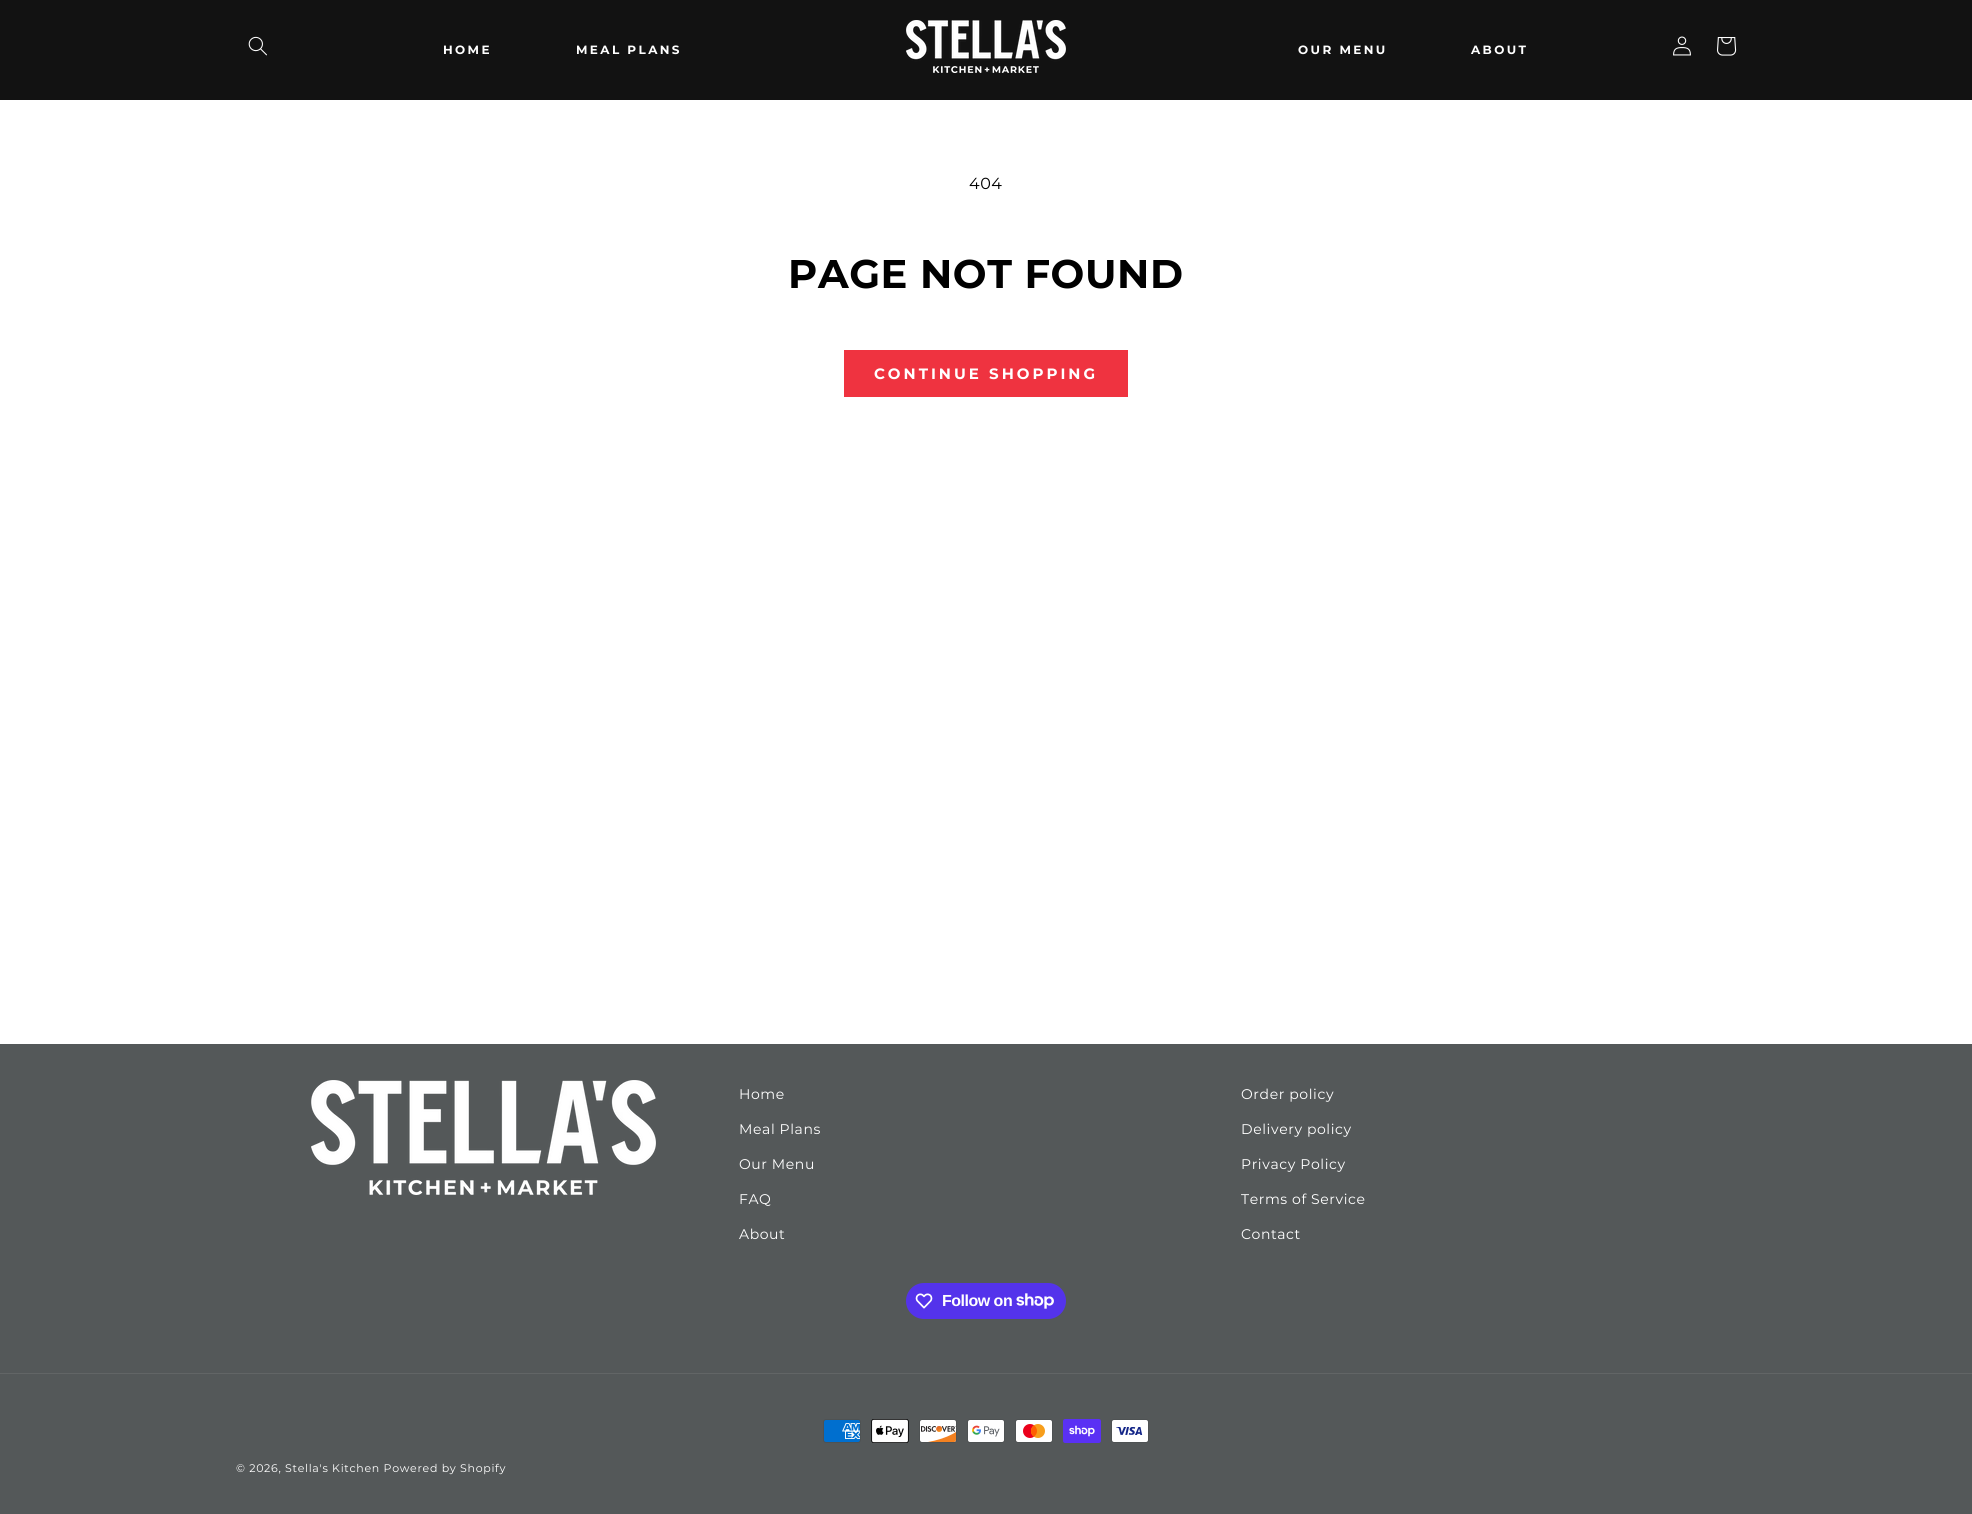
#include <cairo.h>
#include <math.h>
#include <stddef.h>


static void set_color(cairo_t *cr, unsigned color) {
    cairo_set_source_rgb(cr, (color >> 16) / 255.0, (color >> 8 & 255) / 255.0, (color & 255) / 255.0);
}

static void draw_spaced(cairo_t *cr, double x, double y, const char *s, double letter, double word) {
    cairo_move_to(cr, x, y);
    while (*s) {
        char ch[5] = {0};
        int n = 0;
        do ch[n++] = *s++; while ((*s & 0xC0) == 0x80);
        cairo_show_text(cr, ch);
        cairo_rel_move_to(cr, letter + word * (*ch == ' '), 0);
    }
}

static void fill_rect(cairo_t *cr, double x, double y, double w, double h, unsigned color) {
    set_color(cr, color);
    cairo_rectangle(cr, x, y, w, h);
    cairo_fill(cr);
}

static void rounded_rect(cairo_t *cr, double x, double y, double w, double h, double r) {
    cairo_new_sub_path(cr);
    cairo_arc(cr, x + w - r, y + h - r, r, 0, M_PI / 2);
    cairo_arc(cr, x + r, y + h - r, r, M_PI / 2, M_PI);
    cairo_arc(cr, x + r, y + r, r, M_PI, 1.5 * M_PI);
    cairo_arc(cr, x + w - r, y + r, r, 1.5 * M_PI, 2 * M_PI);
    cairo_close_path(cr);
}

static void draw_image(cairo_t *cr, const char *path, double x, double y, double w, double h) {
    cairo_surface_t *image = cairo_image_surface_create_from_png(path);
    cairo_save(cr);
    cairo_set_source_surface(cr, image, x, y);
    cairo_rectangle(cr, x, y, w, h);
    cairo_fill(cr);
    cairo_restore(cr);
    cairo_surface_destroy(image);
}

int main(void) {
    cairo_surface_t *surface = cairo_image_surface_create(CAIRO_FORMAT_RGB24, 1972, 1514);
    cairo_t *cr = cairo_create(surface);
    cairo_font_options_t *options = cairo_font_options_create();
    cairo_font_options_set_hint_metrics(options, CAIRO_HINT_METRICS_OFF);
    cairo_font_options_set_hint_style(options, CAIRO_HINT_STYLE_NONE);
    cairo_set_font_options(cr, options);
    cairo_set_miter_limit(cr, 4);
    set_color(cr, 0xFFFFFF);
    cairo_paint(cr);
    fill_rect(cr, 0, 0, 1972, 100, 0x121212);
    draw_image(cr, "assets/img1.png", 248, 36, 19, 20);
    draw_image(cr, "assets/img2.png", 906, 20, 160, 53);
    draw_image(cr, "assets/img3.png", 1673, 36, 18, 20);
    draw_image(cr, "assets/img4.png", 1717, 37, 20, 19);
    cairo_select_font_face(cr, "Montserrat", CAIRO_FONT_SLANT_NORMAL, CAIRO_FONT_WEIGHT_BOLD);
    cairo_set_font_size(cr, 12);
    set_color(cr, 0xFFFFFF);
    draw_spaced(cr, 443, 54, "HOME", 2.4, 0);
    draw_spaced(cr, 576, 54, "MEAL PLANS", 2.4, 0);
    draw_spaced(cr, 1298, 54, "OUR MENU", 2.4, 0);
    draw_spaced(cr, 1471, 54, "ABOUT", 2.4, 0);
    cairo_select_font_face(cr, "Montserrat", CAIRO_FONT_SLANT_NORMAL, CAIRO_FONT_WEIGHT_NORMAL);
    cairo_set_font_size(cr, 16);
    set_color(cr, 0x000000);
    draw_spaced(cr, 969, 189, "404", 0.6, 0);
    cairo_select_font_face(cr, "Montserrat", CAIRO_FONT_SLANT_NORMAL, CAIRO_FONT_WEIGHT_BOLD);
    cairo_set_font_size(cr, 40);
    draw_spaced(cr, 788, 288, "PAGE NOT FOUND", 0.6, 0);
    fill_rect(cr, 844, 350, 284, 47, 0xEF3340);
    cairo_set_font_size(cr, 15);
    set_color(cr, 0xFFFFFF);
    draw_spaced(cr, 874, 379, "CONTINUE SHOPPING", 3, 0);
    fill_rect(cr, 0, 1044, 1972, 470, 0x545859);
    draw_image(cr, "assets/img5.png", 311, 1080, 345, 115);
    cairo_select_font_face(cr, "Montserrat", CAIRO_FONT_SLANT_NORMAL, CAIRO_FONT_WEIGHT_NORMAL);
    cairo_set_font_size(cr, 14);
    set_color(cr, 0xFFFFFF);
    draw_spaced(cr, 739, 1099, "Home", 0.6, 0);
    draw_spaced(cr, 739, 1134, "Meal Plans", 0.6, 0);
    draw_spaced(cr, 739, 1169, "Our Menu", 0.6, 0);
    draw_spaced(cr, 739, 1204, "FAQ", 0.6, 0);
    draw_spaced(cr, 739, 1239, "About", 0.6, 0);
    draw_spaced(cr, 1241, 1099, "Order policy", 0.6, 0);
    draw_spaced(cr, 1241, 1134, "Delivery policy", 0.6, 0);
    draw_spaced(cr, 1241, 1169, "Privacy Policy", 0.6, 0);
    draw_spaced(cr, 1241, 1204, "Terms of Service", 0.6, 0);
    draw_spaced(cr, 1241, 1239, "Contact", 0.6, 0);
    set_color(cr, 0x5433EB);
    rounded_rect(cr, 906, 1283, 160, 36, 18);
    cairo_fill(cr);
    draw_image(cr, "assets/img6.png", 915, 1293, 18, 16);
    cairo_select_font_face(cr, "Liberation Sans", CAIRO_FONT_SLANT_NORMAL, CAIRO_FONT_WEIGHT_BOLD);
    cairo_set_font_size(cr, 16);
    set_color(cr, 0xFFFFFF);
    draw_spaced(cr, 942, 1306, "Follow on", -0.5, 0);
    draw_image(cr, "assets/img7.png", 1016, 1293, 38, 16);
    fill_rect(cr, 0, 1373, 1972, 1, 0x626566);
    draw_image(cr, "assets/img8.png", 823, 1419, 38, 24);
    draw_image(cr, "assets/img9.png", 871, 1419, 38, 24);
    draw_image(cr, "assets/img10.png", 919, 1419, 38, 24);
    draw_image(cr, "assets/img11.png", 967, 1419, 38, 24);
    draw_image(cr, "assets/img12.png", 1015, 1419, 38, 24);
    draw_image(cr, "assets/img13.png", 1063, 1419, 38, 24);
    draw_image(cr, "assets/img14.png", 1111, 1419, 38, 24);
    cairo_select_font_face(cr, "Montserrat", CAIRO_FONT_SLANT_NORMAL, CAIRO_FONT_WEIGHT_NORMAL);
    cairo_set_font_size(cr, 11);
    set_color(cr, 0xFFFFFF);
    draw_spaced(cr, 236, 1472, "© 2026, Stella's Kitchen Powered by Shopify", 0.7, 0);
    cairo_surface_write_to_png(surface, "output.png");
    cairo_font_options_destroy(options);
    cairo_destroy(cr);
    cairo_surface_destroy(surface);
    return 0;
}
